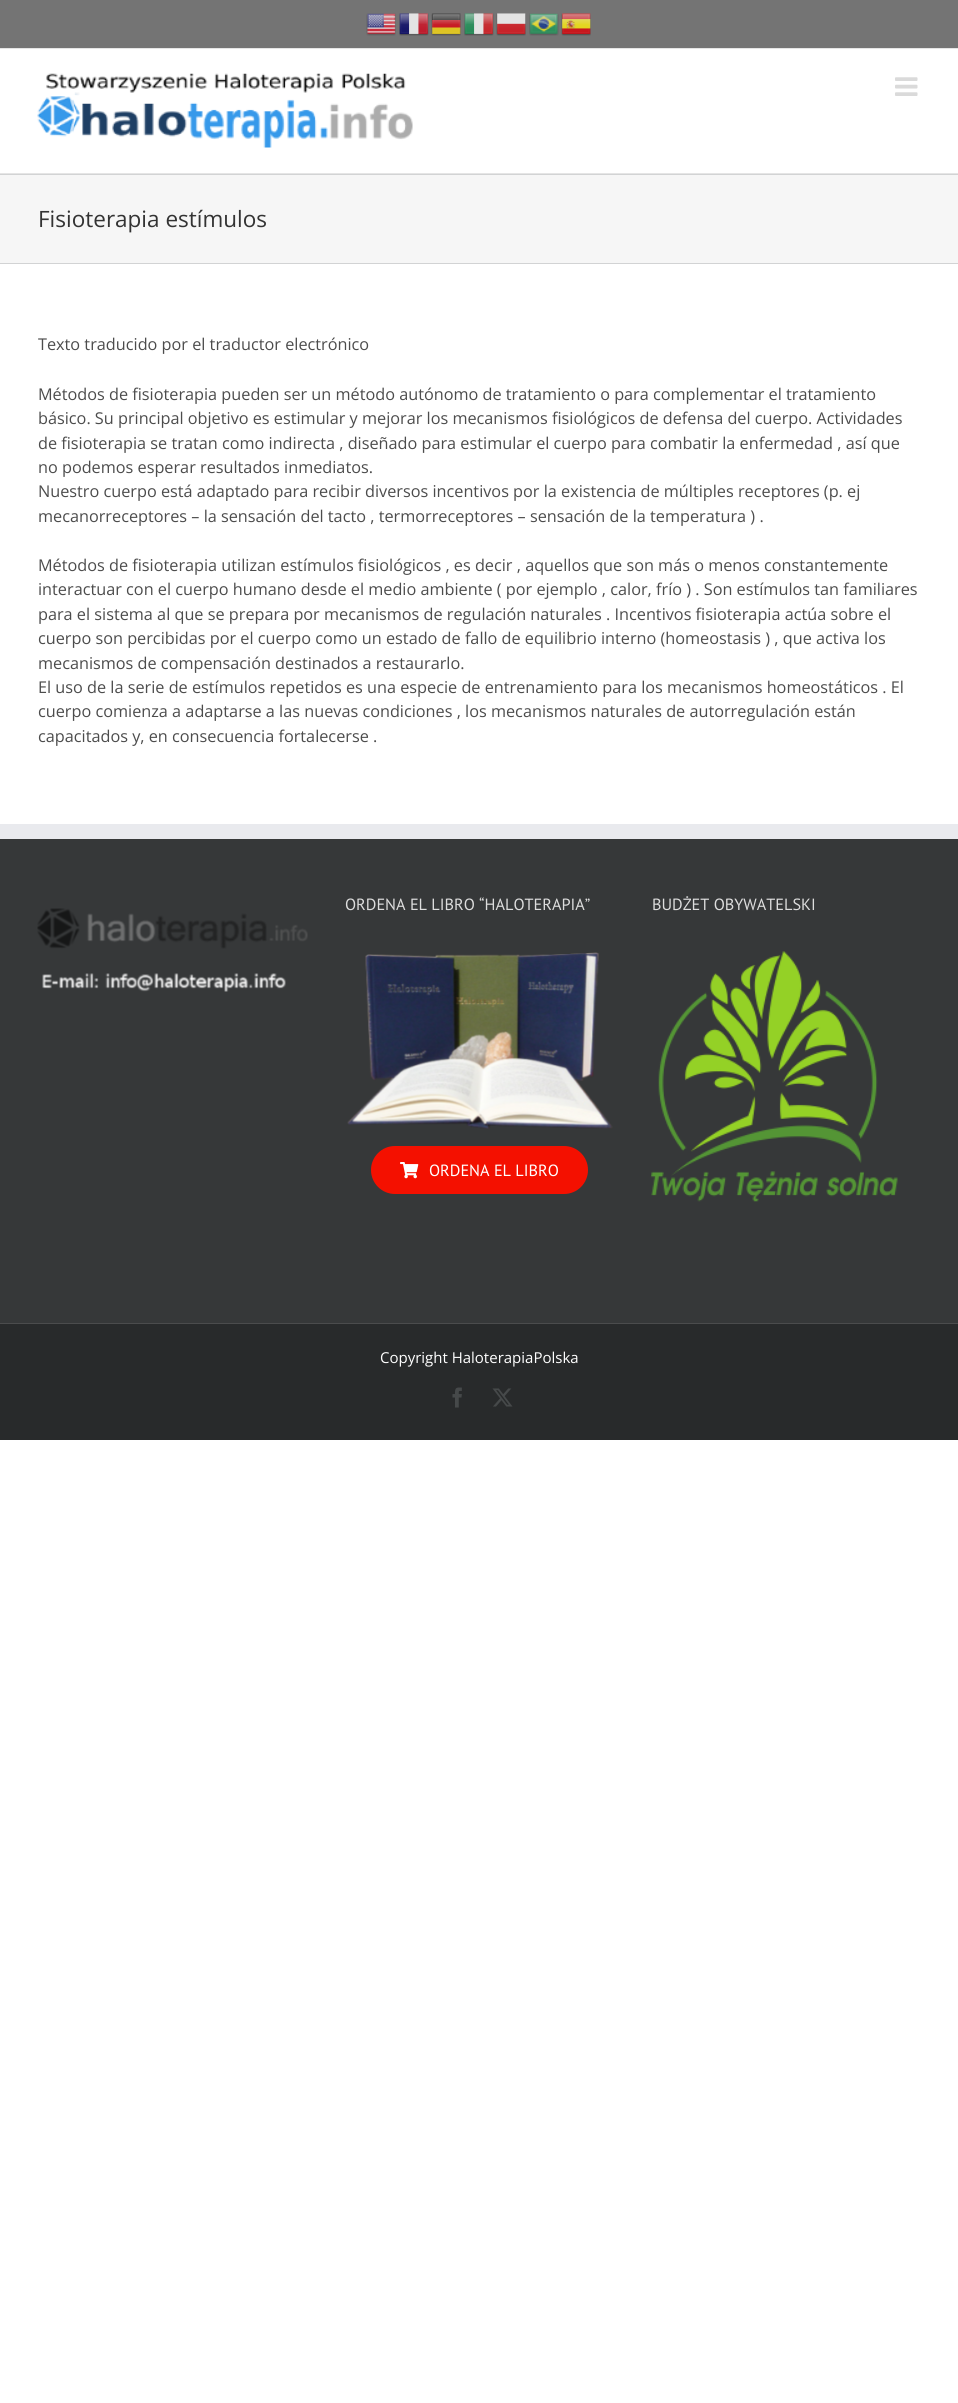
#include <cairo.h>
#include <math.h>
#include <stddef.h>


static void set_color(cairo_t *cr, unsigned color) {
    cairo_set_source_rgb(cr, (color >> 16) / 255.0, (color >> 8 & 255) / 255.0, (color & 255) / 255.0);
}

static void draw_text(cairo_t *cr, double x, double y, const char *s, const char *family, double size, int italic, int bold, unsigned color) {
    cairo_select_font_face(cr, family, italic ? CAIRO_FONT_SLANT_ITALIC : CAIRO_FONT_SLANT_NORMAL,
        bold ? CAIRO_FONT_WEIGHT_BOLD : CAIRO_FONT_WEIGHT_NORMAL);
    cairo_set_font_size(cr, size);
    set_color(cr, color);
    cairo_move_to(cr, x, y);
    cairo_show_text(cr, s);
}

static void fill_rect(cairo_t *cr, double x, double y, double w, double h, unsigned color) {
    set_color(cr, color);
    cairo_rectangle(cr, x, y, w, h);
    cairo_fill(cr);
}

static void rounded_rect(cairo_t *cr, double x, double y, double w, double h, double r) {
    cairo_new_sub_path(cr);
    cairo_arc(cr, x + w - r, y + h - r, r, 0, M_PI / 2);
    cairo_arc(cr, x + r, y + h - r, r, M_PI / 2, M_PI);
    cairo_arc(cr, x + r, y + r, r, M_PI, 1.5 * M_PI);
    cairo_arc(cr, x + w - r, y + r, r, 1.5 * M_PI, 2 * M_PI);
    cairo_close_path(cr);
}

static void draw_image(cairo_t *cr, const char *path, double x, double y, double w, double h) {
    cairo_surface_t *image = cairo_image_surface_create_from_png(path);
    cairo_save(cr);
    cairo_set_source_surface(cr, image, x, y);
    cairo_rectangle(cr, x, y, w, h);
    cairo_fill(cr);
    cairo_restore(cr);
    cairo_surface_destroy(image);
}

int main(void) {
    cairo_surface_t *surface = cairo_image_surface_create(CAIRO_FORMAT_RGB24, 958, 2403);
    cairo_t *cr = cairo_create(surface);
    cairo_font_options_t *options = cairo_font_options_create();
    cairo_font_options_set_hint_metrics(options, CAIRO_HINT_METRICS_OFF);
    cairo_font_options_set_hint_style(options, CAIRO_HINT_STYLE_NONE);
    cairo_set_font_options(cr, options);
    cairo_set_miter_limit(cr, 4);
    set_color(cr, 0xFFFFFF);
    cairo_paint(cr);
    fill_rect(cr, 0, 0, 958, 48, 0x747474);
    fill_rect(cr, 0, 48, 958, 1, 0xE5E5E5);
    draw_image(cr, "assets/img1.png", 366, 13, 30, 23);
    draw_image(cr, "assets/img2.png", 399, 13, 30, 23);
    draw_image(cr, "assets/img3.png", 431, 13, 30, 23);
    draw_image(cr, "assets/img4.png", 464, 13, 30, 23);
    draw_image(cr, "assets/img5.png", 496, 13, 30, 23);
    draw_image(cr, "assets/img6.png", 529, 13, 30, 23);
    draw_image(cr, "assets/img7.png", 561, 13, 30, 23);
    fill_rect(cr, 0, 173, 958, 1, 0xE5E5E5);
    draw_image(cr, "assets/img8.png", 37, 73, 376, 75);
    draw_image(cr, "assets/img9.png", 895, 77, 23, 19);
    fill_rect(cr, 0, 175, 958, 88, 0xF6F6F6);
    fill_rect(cr, 0, 174, 958, 1, 0xD2D3D4);
    fill_rect(cr, 0, 263, 958, 1, 0xD2D3D4);
    draw_text(cr, 38, 227, "Fisioterapia estímulos", "Open Sans", 22.5, 0, 0, 0x333333);
    draw_text(cr, 38, 350, "Texto traducido por el traductor electrónico", "Open Sans", 16.25, 0, 0, 0x4C4C4C);
    draw_text(cr, 38, 400, "Métodos de fisioterapia pueden ser un método autónomo de tratamiento o para complementar el tratamiento", "Open Sans", 16.25, 0, 0, 0x4C4C4C);
    draw_text(cr, 38, 424, "básico. Su principal objetivo es estimular y mejorar los mecanismos fisiológicos de defensa del cuerpo. Actividades", "Open Sans", 16.25, 0, 0, 0x4C4C4C);
    draw_text(cr, 38, 449, "de fisioterapia se tratan como indirecta , diseñado para estimular el cuerpo para combatir la enfermedad , así que", "Open Sans", 16.25, 0, 0, 0x4C4C4C);
    draw_text(cr, 38, 473, "no podemos esperar resultados inmediatos.", "Open Sans", 16.25, 0, 0, 0x4C4C4C);
    draw_text(cr, 38, 497, "Nuestro cuerpo está adaptado para recibir diversos incentivos por la existencia de múltiples receptores (p. ej", "Open Sans", 16.25, 0, 0, 0x4C4C4C);
    draw_text(cr, 38, 522, "mecanorreceptores – la sensación del tacto , termorreceptores – sensación de la temperatura ) .", "Open Sans", 16.25, 0, 0, 0x4C4C4C);
    draw_text(cr, 38, 571, "Métodos de fisioterapia utilizan estímulos fisiológicos , es decir , aquellos que son más o menos constantemente", "Open Sans", 16.25, 0, 0, 0x4C4C4C);
    draw_text(cr, 38, 595, "interactuar con el cuerpo humano desde el medio ambiente ( por ejemplo , calor, frío ) . Son estímulos tan familiares", "Open Sans", 16.25, 0, 0, 0x4C4C4C);
    draw_text(cr, 38, 620, "para el sistema al que se prepara por mecanismos de regulación naturales . Incentivos fisioterapia actúa sobre el", "Open Sans", 16.25, 0, 0, 0x4C4C4C);
    draw_text(cr, 38, 644, "cuerpo son percibidas por el cuerpo como un estado de fallo de equilibrio interno (homeostasis ) , que activa los", "Open Sans", 16.25, 0, 0, 0x4C4C4C);
    draw_text(cr, 38, 669, "mecanismos de compensación destinados a restaurarlo.", "Open Sans", 16.25, 0, 0, 0x4C4C4C);
    draw_text(cr, 38, 693, "El uso de la serie de estímulos repetidos es una especie de entrenamiento para los mecanismos homeostáticos . El", "Open Sans", 16.25, 0, 0, 0x4C4C4C);
    draw_text(cr, 38, 717, "cuerpo comienza a adaptarse a las nuevas condiciones , los mecanismos naturales de autorregulación están", "Open Sans", 16.25, 0, 0, 0x4C4C4C);
    draw_text(cr, 38, 742, "capacitados y, en consecuencia fortalecerse .", "Open Sans", 16.25, 0, 0, 0x4C4C4C);
    fill_rect(cr, 0, 839, 958, 484, 0x363839);
    fill_rect(cr, 0, 824, 958, 15, 0xE9EAEE);
    draw_image(cr, "assets/img10.png", 37, 908, 271, 41);
    draw_image(cr, "assets/img11.png", 42, 973, 244, 19);
    draw_text(cr, 345, 910, "ORDENA EL LIBRO “HALOTERAPIA”", "PT Sans", 16.25, 0, 0, 0xDDDDDD);
    draw_image(cr, "assets/img12.png", 347, 952, 266, 177);
    set_color(cr, 0xF41000);
    rounded_rect(cr, 371, 1146, 217, 48, 24);
    cairo_fill(cr);
    draw_image(cr, "assets/img13.png", 400, 1162, 19, 17);
    draw_text(cr, 429, 1176, "ORDENA EL LIBRO", "PT Sans", 16.25, 0, 0, 0xFFFFFF);
    draw_text(cr, 652, 910, "BUDŻET OBYWATELSKI", "PT Sans", 16.25, 0, 0, 0xDDDDDD);
    draw_image(cr, "assets/img14.png", 651, 951, 247, 251);
    fill_rect(cr, 0, 1324, 958, 116, 0x282A2B);
    fill_rect(cr, 0, 1323, 958, 1, 0x4B4C4D);
    draw_text(cr, 380, 1363, "Copyright HaloterapiaPolska", "Open Sans", 15, 0, 0, 0xFFFFFF);
    draw_image(cr, "assets/img15.png", 452, 1387, 10, 21);
    draw_image(cr, "assets/img16.png", 492, 1388, 21, 19);
    cairo_surface_write_to_png(surface, "output.png");
    cairo_font_options_destroy(options);
    cairo_destroy(cr);
    cairo_surface_destroy(surface);
    return 0;
}
